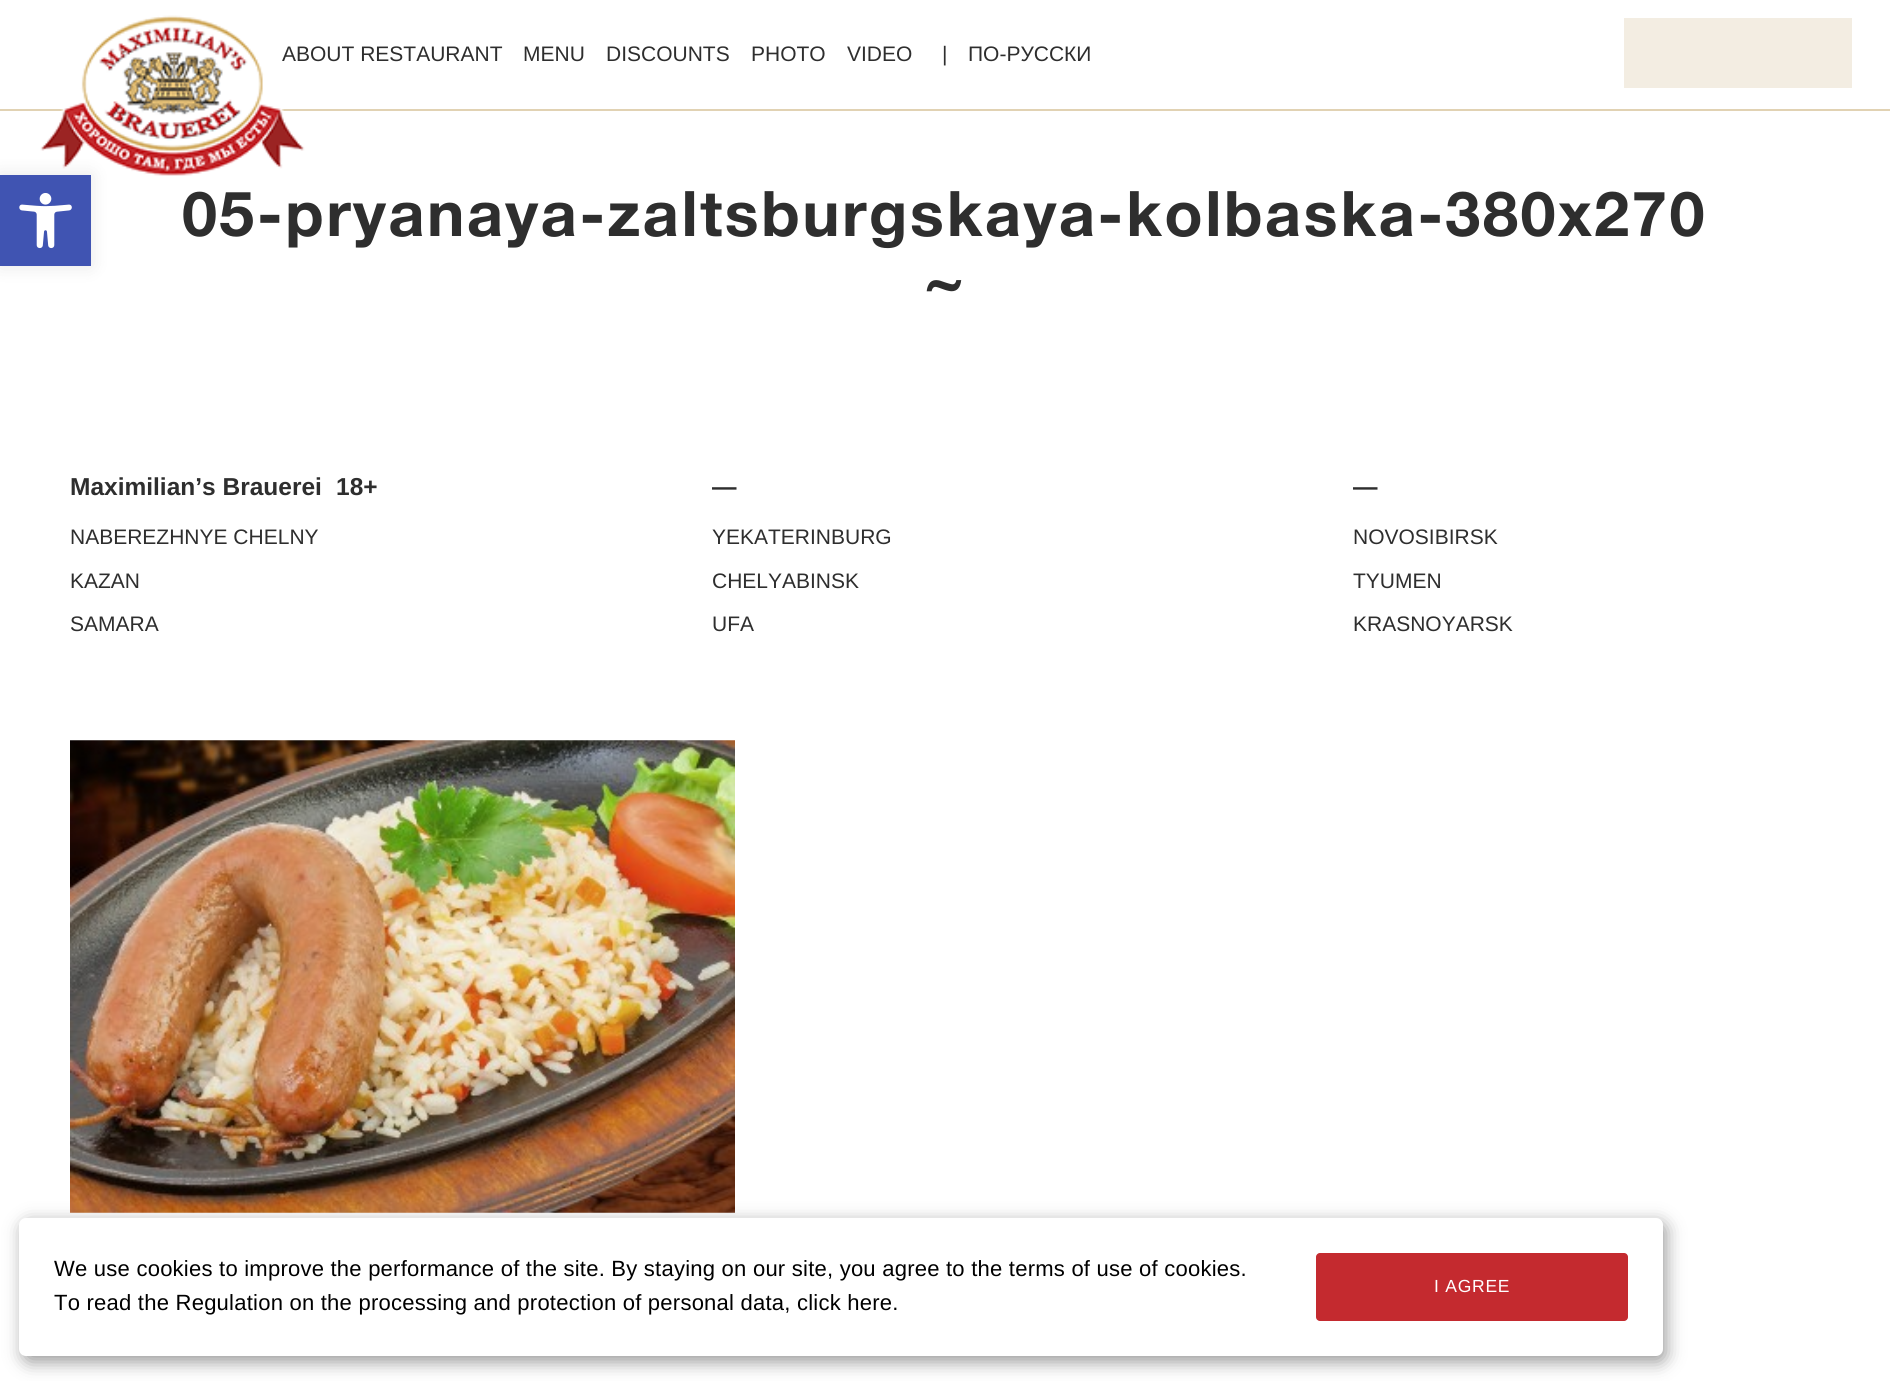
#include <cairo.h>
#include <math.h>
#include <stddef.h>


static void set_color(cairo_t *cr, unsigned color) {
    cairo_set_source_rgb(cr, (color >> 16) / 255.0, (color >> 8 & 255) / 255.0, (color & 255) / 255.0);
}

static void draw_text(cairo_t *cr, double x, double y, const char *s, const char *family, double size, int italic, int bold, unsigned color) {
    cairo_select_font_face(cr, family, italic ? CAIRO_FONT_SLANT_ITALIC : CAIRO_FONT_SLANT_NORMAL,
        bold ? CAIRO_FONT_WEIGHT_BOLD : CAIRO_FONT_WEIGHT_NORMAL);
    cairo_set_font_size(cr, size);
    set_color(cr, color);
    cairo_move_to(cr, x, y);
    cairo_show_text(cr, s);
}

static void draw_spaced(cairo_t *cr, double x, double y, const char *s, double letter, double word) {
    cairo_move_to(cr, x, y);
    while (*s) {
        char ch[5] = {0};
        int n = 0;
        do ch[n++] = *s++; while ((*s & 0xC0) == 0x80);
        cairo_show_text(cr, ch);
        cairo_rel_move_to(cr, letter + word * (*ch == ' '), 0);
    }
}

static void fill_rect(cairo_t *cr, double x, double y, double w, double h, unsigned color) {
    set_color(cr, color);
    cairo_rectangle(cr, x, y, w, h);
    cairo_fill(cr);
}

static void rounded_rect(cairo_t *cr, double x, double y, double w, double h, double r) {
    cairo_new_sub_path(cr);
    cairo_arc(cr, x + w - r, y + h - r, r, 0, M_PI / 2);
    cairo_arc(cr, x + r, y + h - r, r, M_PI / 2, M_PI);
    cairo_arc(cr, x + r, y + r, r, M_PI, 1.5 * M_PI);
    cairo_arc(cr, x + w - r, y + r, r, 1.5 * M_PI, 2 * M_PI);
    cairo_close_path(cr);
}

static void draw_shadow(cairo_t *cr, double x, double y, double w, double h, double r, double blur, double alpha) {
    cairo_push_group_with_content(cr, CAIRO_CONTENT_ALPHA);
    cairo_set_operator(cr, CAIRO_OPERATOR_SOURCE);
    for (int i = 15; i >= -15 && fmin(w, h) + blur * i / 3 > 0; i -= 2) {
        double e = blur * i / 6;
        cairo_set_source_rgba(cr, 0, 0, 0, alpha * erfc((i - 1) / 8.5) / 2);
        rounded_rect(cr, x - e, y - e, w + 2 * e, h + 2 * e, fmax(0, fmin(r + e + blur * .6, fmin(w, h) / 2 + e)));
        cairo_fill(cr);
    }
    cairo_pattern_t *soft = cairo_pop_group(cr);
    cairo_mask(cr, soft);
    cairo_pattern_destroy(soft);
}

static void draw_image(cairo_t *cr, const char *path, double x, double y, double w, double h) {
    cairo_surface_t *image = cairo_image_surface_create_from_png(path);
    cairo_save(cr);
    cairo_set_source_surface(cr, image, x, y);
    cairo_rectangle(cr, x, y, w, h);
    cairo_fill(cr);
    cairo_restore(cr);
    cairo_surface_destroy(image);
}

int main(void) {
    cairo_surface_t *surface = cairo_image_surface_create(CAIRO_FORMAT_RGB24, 1890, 1381);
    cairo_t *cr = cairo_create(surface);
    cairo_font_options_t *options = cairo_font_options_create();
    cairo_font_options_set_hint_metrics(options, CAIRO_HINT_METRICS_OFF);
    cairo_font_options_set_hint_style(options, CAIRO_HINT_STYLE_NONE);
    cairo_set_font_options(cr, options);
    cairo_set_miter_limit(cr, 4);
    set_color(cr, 0xFFFFFF);
    cairo_paint(cr);
    fill_rect(cr, 0, 109, 1890, 2, 0xE1D2B3);
    draw_text(cr, 282, 61, "ABOUT RESTAURANT", "Liberation Sans", 21, 0, 0, 0x2E2E2E);
    draw_image(cr, "assets/img1.png", 40, 15, 265, 161);
    draw_text(cr, 523, 61, "MENU", "Liberation Sans", 21, 0, 0, 0x2E2E2E);
    draw_text(cr, 606, 61, "DISCOUNTS", "Liberation Sans", 21, 0, 0, 0x2E2E2E);
    draw_text(cr, 751, 61, "PHOTO", "Liberation Sans", 21, 0, 0, 0x2E2E2E);
    draw_text(cr, 847, 61, "VIDEO", "Liberation Sans", 21, 0, 0, 0x2E2E2E);
    draw_text(cr, 942, 61, "|", "Liberation Sans", 21, 0, 0, 0x2E2E2E);
    draw_text(cr, 968, 61, "ПО-РУССКИ", "Liberation Sans", 21, 0, 0, 0x2E2E2E);
    fill_rect(cr, 1624, 18, 228, 70, 0xF3EDE2);
    set_color(cr, 0x000000);
    draw_shadow(cr, 0, 175, 91, 91, 0, 9, 0.1);
    fill_rect(cr, 0, 175, 91, 91, 0x4054B2);
    draw_image(cr, "assets/img2.png", 19, 193, 53, 56);
    cairo_select_font_face(cr, "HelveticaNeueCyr", CAIRO_FONT_SLANT_NORMAL, CAIRO_FONT_WEIGHT_BOLD);
    cairo_set_font_size(cr, 63);
    set_color(cr, 0x2E2E2E);
    draw_spaced(cr, 182, 236, "05-pryanaya-zaltsburgskaya-kolbaska-380x270", 2.5, 0);
    draw_spaced(cr, 925, 302, "~", 2.5, 0);
    draw_text(cr, 70, 495, "Maximilian’s Brauerei", "Liberation Sans", 24.5, 0, 1, 0x2E2E2E);
    draw_text(cr, 336, 495, "18+", "Liberation Sans", 24.5, 0, 1, 0x2E2E2E);
    draw_text(cr, 70, 544, "NABEREZHNYE CHELNY", "Liberation Sans", 21, 0, 0, 0x2E2E2E);
    draw_text(cr, 70, 588, "KAZAN", "Liberation Sans", 21, 0, 0, 0x2E2E2E);
    draw_text(cr, 70, 631, "SAMARA", "Liberation Sans", 21, 0, 0, 0x2E2E2E);
    draw_text(cr, 712, 495, "—", "Liberation Sans", 24.5, 0, 1, 0x2E2E2E);
    draw_text(cr, 712, 544, "YEKATERINBURG", "Liberation Sans", 21, 0, 0, 0x2E2E2E);
    draw_text(cr, 712, 588, "CHELYABINSK", "Liberation Sans", 21, 0, 0, 0x2E2E2E);
    draw_text(cr, 712, 631, "UFA", "Liberation Sans", 21, 0, 0, 0x2E2E2E);
    draw_text(cr, 1353, 495, "—", "Liberation Sans", 24.5, 0, 1, 0x2E2E2E);
    draw_text(cr, 1353, 544, "NOVOSIBIRSK", "Liberation Sans", 21, 0, 0, 0x2E2E2E);
    draw_text(cr, 1353, 588, "TYUMEN", "Liberation Sans", 21, 0, 0, 0x2E2E2E);
    draw_text(cr, 1353, 631, "KRASNOYARSK", "Liberation Sans", 21, 0, 0, 0x2E2E2E);
    draw_image(cr, "assets/img3.png", 70, 740, 665, 473);
    set_color(cr, 0x000000);
    draw_shadow(cr, 23, 1223, 1643, 139, 7, 9, 0.4);
    set_color(cr, 0xFFFFFF);
    rounded_rect(cr, 19, 1218, 1644, 138, 7);
    cairo_fill(cr);
    cairo_set_font_size(cr, 22.05);
    set_color(cr, 0x000000);
    draw_spaced(cr, 54, 1276, "We use cookies to improve the performance of the site. By staying on our site, you agree to the terms of use of cookies.", 0.22, 0);
    draw_spaced(cr, 54, 1310, "To read the Regulation on the processing and protection of personal data,", 0.22, 0);
    draw_spaced(cr, 797, 1310, "click here.", 0.22, 0);
    set_color(cr, 0xC42A2F);
    rounded_rect(cr, 1316, 1253, 312, 68, 4);
    cairo_fill(cr);
    cairo_set_font_size(cr, 17.5);
    set_color(cr, 0xFFFFFF);
    draw_spaced(cr, 1434, 1292, "I AGREE", 0.75, 0);
    cairo_surface_write_to_png(surface, "output.png");
    cairo_font_options_destroy(options);
    cairo_destroy(cr);
    cairo_surface_destroy(surface);
    return 0;
}
